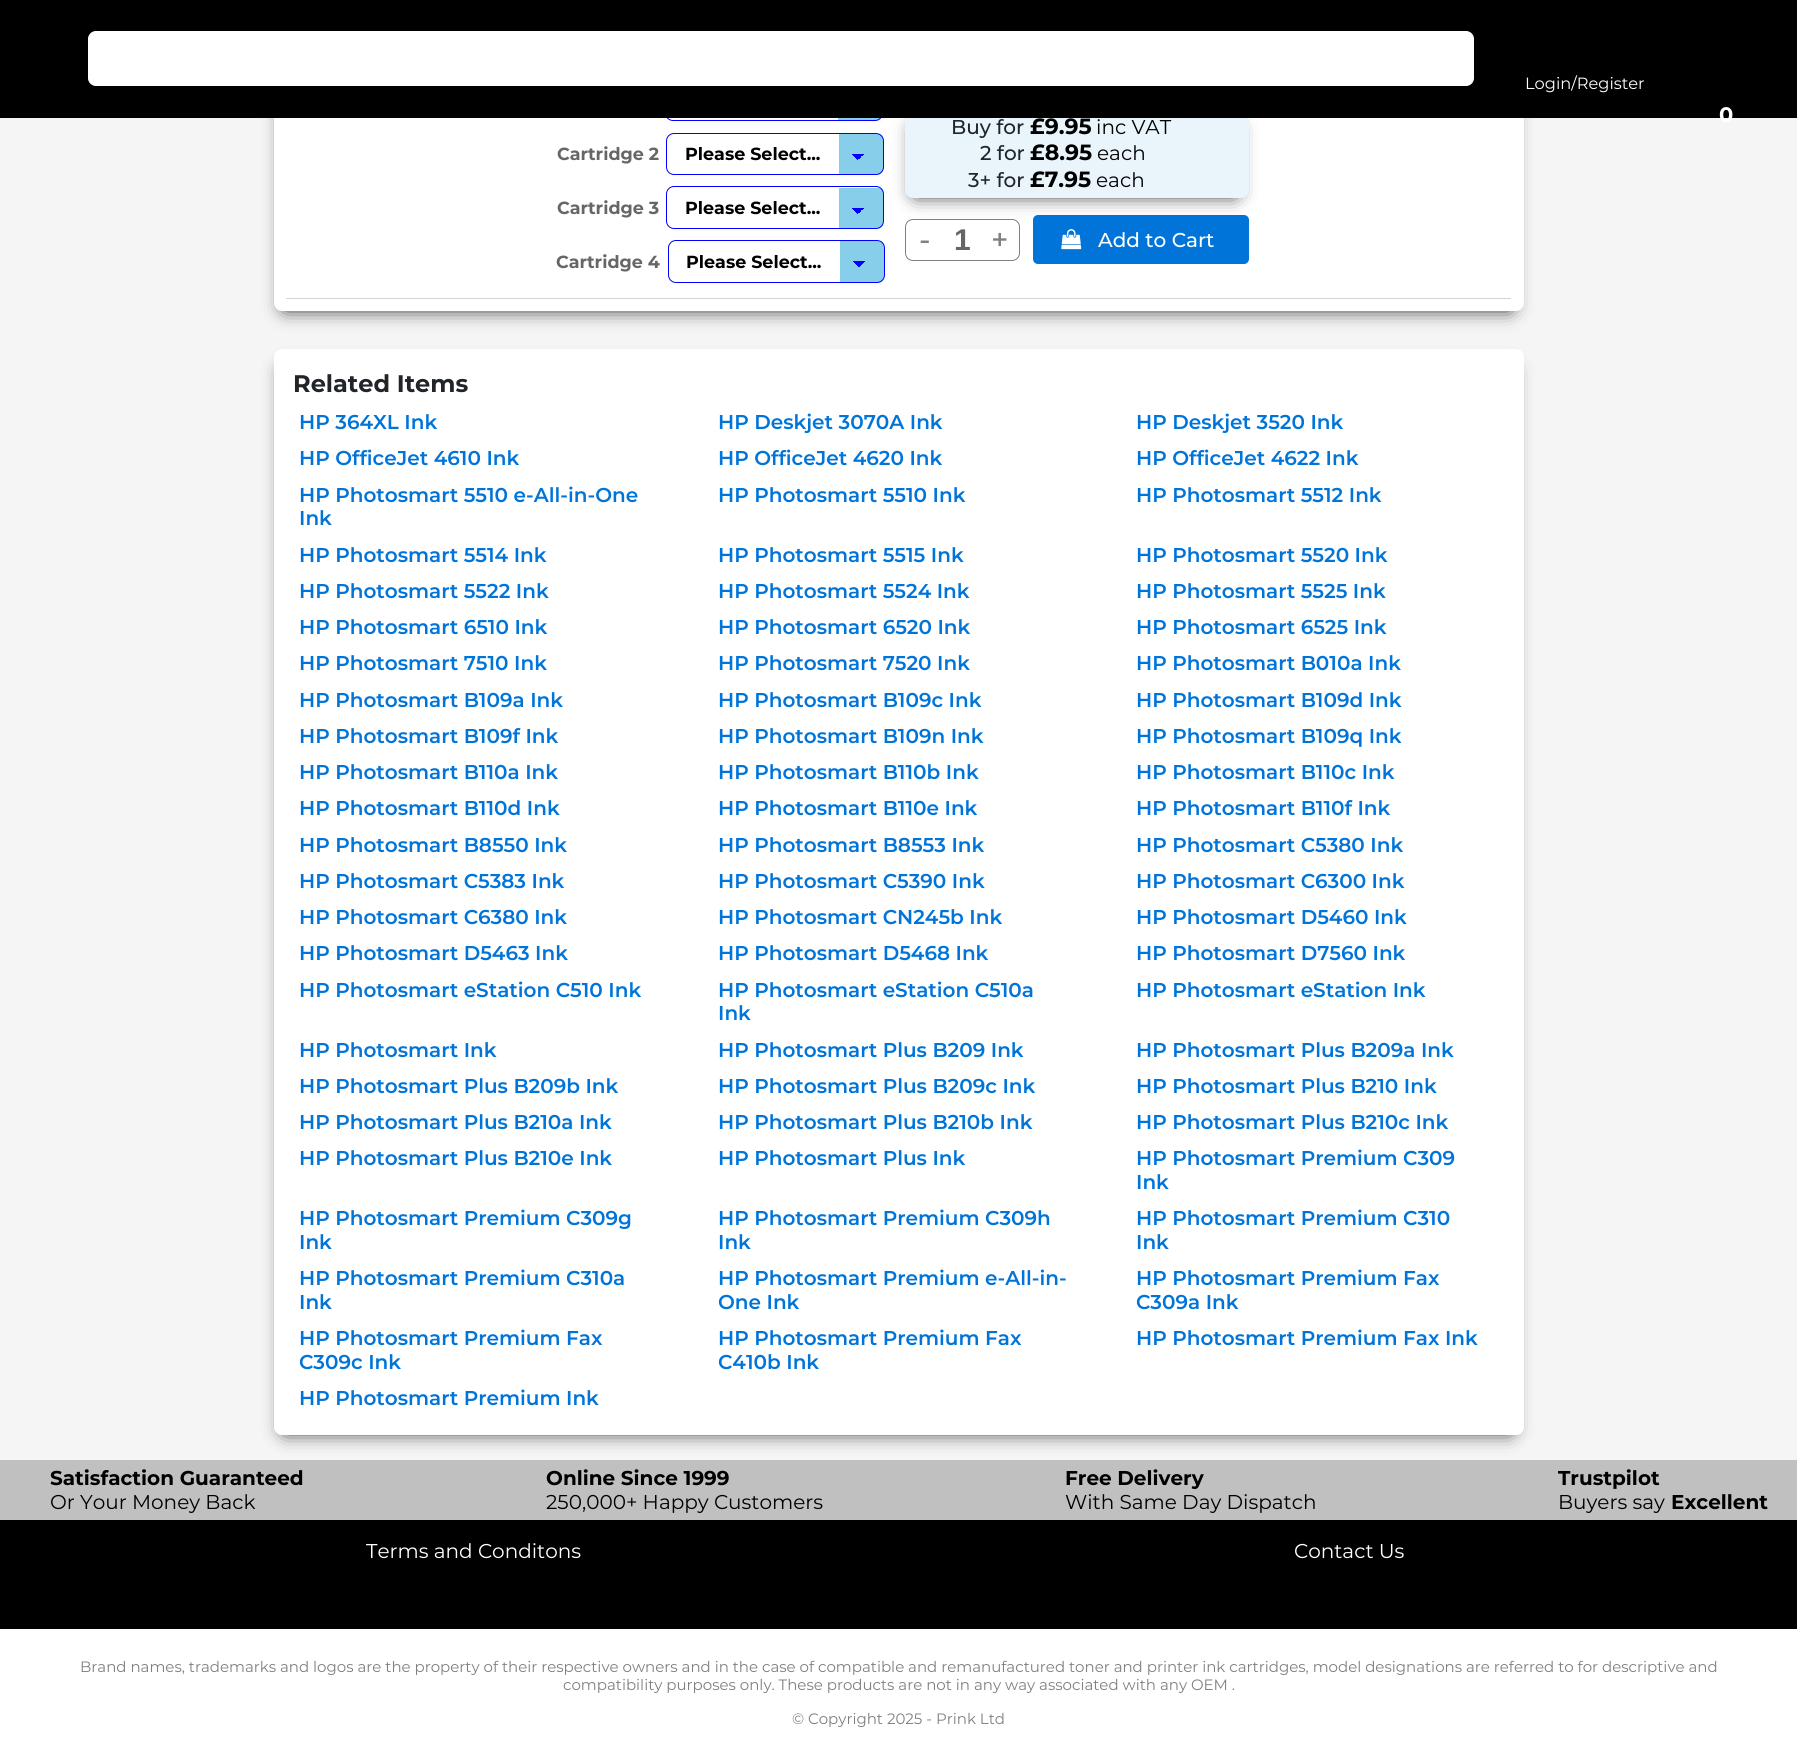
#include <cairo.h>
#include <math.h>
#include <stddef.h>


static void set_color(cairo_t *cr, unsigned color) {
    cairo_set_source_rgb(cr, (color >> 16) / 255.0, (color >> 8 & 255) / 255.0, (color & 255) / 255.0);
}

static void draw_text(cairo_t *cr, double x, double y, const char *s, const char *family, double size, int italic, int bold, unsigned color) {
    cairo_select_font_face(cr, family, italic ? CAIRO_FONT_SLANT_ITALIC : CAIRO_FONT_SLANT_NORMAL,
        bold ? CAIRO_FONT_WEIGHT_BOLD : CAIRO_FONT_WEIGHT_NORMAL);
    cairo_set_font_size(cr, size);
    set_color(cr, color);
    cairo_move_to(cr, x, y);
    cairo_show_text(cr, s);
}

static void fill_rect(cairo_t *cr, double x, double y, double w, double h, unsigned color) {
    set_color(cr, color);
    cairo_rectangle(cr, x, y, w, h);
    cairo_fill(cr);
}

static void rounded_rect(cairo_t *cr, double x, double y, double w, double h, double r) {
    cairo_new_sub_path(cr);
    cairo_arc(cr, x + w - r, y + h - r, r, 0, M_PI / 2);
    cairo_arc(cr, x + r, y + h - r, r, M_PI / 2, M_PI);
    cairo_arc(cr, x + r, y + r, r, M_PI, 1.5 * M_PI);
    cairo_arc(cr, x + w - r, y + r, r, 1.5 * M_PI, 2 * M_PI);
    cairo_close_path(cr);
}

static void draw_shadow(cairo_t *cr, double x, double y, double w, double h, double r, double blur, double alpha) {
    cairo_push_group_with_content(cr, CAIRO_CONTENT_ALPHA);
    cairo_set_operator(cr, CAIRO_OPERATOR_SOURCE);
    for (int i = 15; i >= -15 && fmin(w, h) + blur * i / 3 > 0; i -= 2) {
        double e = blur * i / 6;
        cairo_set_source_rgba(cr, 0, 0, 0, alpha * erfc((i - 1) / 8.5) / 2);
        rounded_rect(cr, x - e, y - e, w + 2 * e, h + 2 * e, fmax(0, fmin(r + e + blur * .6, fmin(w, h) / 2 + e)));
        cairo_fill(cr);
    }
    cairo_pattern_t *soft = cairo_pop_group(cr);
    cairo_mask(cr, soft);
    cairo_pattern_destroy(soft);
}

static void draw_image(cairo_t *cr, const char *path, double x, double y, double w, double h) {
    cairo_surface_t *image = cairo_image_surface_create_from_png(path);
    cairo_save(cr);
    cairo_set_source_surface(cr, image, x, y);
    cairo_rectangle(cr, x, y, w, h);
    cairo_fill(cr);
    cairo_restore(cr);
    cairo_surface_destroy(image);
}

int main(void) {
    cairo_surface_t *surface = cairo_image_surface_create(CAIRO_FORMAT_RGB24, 1797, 1755);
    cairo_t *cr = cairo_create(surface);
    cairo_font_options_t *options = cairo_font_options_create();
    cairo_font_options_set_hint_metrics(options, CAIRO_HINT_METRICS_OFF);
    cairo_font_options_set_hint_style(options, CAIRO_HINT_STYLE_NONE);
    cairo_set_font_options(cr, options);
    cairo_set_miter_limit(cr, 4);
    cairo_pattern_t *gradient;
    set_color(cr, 0xF5F5F5);
    cairo_paint(cr);
    set_color(cr, 0x000000);
    draw_shadow(cr, 285, -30, 1225, 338, 0, 10, 1);
    set_color(cr, 0xFFFFFF);
    rounded_rect(cr, 274, -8, 1250, 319, 8);
    cairo_fill(cr);
    cairo_save(cr);
    rounded_rect(cr, 665, 79, 218, 42, 8);
    cairo_clip(cr);
    fill_rect(cr, 838, 118, 43, 3, 0x87CEEB);
    cairo_restore(cr);
    rounded_rect(cr, 665.5, 79.5, 217, 41, 7.5);
    set_color(cr, 0x0000FF);
    cairo_set_line_width(cr, 1);
    cairo_stroke(cr);
    set_color(cr, 0x000000);
    draw_shadow(cr, 916, 128, 319, 66, 0, 10, 1);
    set_color(cr, 0xE9F4FB);
    rounded_rect(cr, 905, 106, 344, 92, 8);
    cairo_fill(cr);
    fill_rect(cr, 0, 0, 1797, 118, 0x000000);
    set_color(cr, 0xFFFFFF);
    rounded_rect(cr, 88.5, 31.5, 1385, 54, 7.5);
    cairo_fill_preserve(cr);
    cairo_stroke(cr);
    draw_text(cr, 1525, 89, "Login/Register", "Montserrat", 16.25, 0, 0, 0xFFFFFF);
    draw_text(cr, 1719, 122, "0", "Montserrat", 21, 0, 1, 0xFFFFFF);
    fill_rect(cr, 286, 298, 1225, 1, 0xD3D3D3);
    draw_text(cr, 557, 160, "Cartridge 2", "Montserrat", 17.5, 0, 1, 0x666666);
    cairo_save(cr);
    rounded_rect(cr, 666, 133, 218, 42, 8);
    cairo_clip(cr);
    fill_rect(cr, 839, 134, 44, 41, 0x87CEEB);
    cairo_restore(cr);
    gradient = cairo_pattern_create_linear(858, 154, 864, 160);
    cairo_pattern_add_color_stop_rgba(gradient, 0.5, 0, 0, 1, 1);
    cairo_pattern_add_color_stop_rgba(gradient, 0.5, 0.529, 0.808, 0.922, 1);
    cairo_set_source(cr, gradient);
    cairo_pattern_destroy(gradient);
    cairo_rectangle(cr, 858, 154, 6, 5);
    cairo_fill(cr);
    gradient = cairo_pattern_create_linear(851, 160, 858, 154);
    cairo_pattern_add_color_stop_rgba(gradient, 0.5, 0.529, 0.808, 0.922, 1);
    cairo_pattern_add_color_stop_rgba(gradient, 0.5, 0, 0, 1, 1);
    cairo_set_source(cr, gradient);
    cairo_pattern_destroy(gradient);
    cairo_rectangle(cr, 851, 154, 7, 6);
    cairo_fill(cr);
    rounded_rect(cr, 666.5, 133.5, 217, 41, 7.5);
    set_color(cr, 0x0000FF);
    cairo_stroke(cr);
    draw_text(cr, 685, 160, "Please Select...", "Montserrat", 17.5, 0, 1, 0x000000);
    draw_text(cr, 557, 214, "Cartridge 3", "Montserrat", 17.5, 0, 1, 0x666666);
    cairo_save(cr);
    rounded_rect(cr, 666, 186, 218, 43, 8);
    cairo_clip(cr);
    fill_rect(cr, 839, 188, 44, 41, 0x87CEEB);
    cairo_restore(cr);
    gradient = cairo_pattern_create_linear(858, 208, 864, 214);
    cairo_pattern_add_color_stop_rgba(gradient, 0.5, 0, 0, 1, 1);
    cairo_pattern_add_color_stop_rgba(gradient, 0.5, 0.529, 0.808, 0.922, 1);
    cairo_set_source(cr, gradient);
    cairo_pattern_destroy(gradient);
    cairo_rectangle(cr, 858, 208, 6, 5);
    cairo_fill(cr);
    gradient = cairo_pattern_create_linear(851, 214, 858, 208);
    cairo_pattern_add_color_stop_rgba(gradient, 0.5, 0.529, 0.808, 0.922, 1);
    cairo_pattern_add_color_stop_rgba(gradient, 0.5, 0, 0, 1, 1);
    cairo_set_source(cr, gradient);
    cairo_pattern_destroy(gradient);
    cairo_rectangle(cr, 851, 208, 7, 6);
    cairo_fill(cr);
    rounded_rect(cr, 666.5, 186.5, 217, 42, 7.5);
    set_color(cr, 0x0000FF);
    cairo_stroke(cr);
    draw_text(cr, 685, 214, "Please Select...", "Montserrat", 17.5, 0, 1, 0x000000);
    draw_text(cr, 556, 268, "Cartridge 4", "Montserrat", 17.5, 0, 1, 0x666666);
    cairo_save(cr);
    rounded_rect(cr, 668, 240, 217, 43, 8);
    cairo_clip(cr);
    fill_rect(cr, 840, 241, 44, 42, 0x87CEEB);
    cairo_restore(cr);
    gradient = cairo_pattern_create_linear(859, 261, 865, 268);
    cairo_pattern_add_color_stop_rgba(gradient, 0.5, 0, 0, 1, 1);
    cairo_pattern_add_color_stop_rgba(gradient, 0.5, 0.529, 0.808, 0.922, 1);
    cairo_set_source(cr, gradient);
    cairo_pattern_destroy(gradient);
    cairo_rectangle(cr, 859, 261, 6, 7);
    cairo_fill(cr);
    gradient = cairo_pattern_create_linear(853, 268, 859, 261);
    cairo_pattern_add_color_stop_rgba(gradient, 0.5, 0.529, 0.808, 0.922, 1);
    cairo_pattern_add_color_stop_rgba(gradient, 0.5, 0, 0, 1, 1);
    cairo_set_source(cr, gradient);
    cairo_pattern_destroy(gradient);
    cairo_rectangle(cr, 853, 261, 6, 7);
    cairo_fill(cr);
    rounded_rect(cr, 668.5, 240.5, 216, 42, 7.5);
    set_color(cr, 0x0000FF);
    cairo_stroke(cr);
    draw_text(cr, 686, 268, "Please Select...", "Montserrat", 17.5, 0, 1, 0x000000);
    draw_text(cr, 951, 134, "Buy for", "Montserrat Medium", 20, 0, 0, 0x212529);
    draw_text(cr, 1030, 134, "£9.95", "Montserrat", 22, 0, 1, 0x000000);
    draw_text(cr, 1096, 134, "inc VAT", "Montserrat", 20, 0, 0, 0x000000);
    draw_text(cr, 980, 160, "2 for", "Montserrat Medium", 20, 0, 0, 0x212529);
    draw_text(cr, 1030, 160, "£8.95", "Montserrat", 22, 0, 1, 0x000000);
    draw_text(cr, 1097, 160, "each", "Montserrat", 20, 0, 0, 0x000000);
    draw_text(cr, 968, 187, "3+ for", "Montserrat Medium", 20, 0, 0, 0x212529);
    draw_text(cr, 1030, 187, "£7.95", "Montserrat", 22, 0, 1, 0x000000);
    draw_text(cr, 1096, 187, "each", "Montserrat", 20, 0, 0, 0x000000);
    rounded_rect(cr, 905.5, 219.5, 114, 41, 7.5);
    set_color(cr, 0x808080);
    cairo_stroke(cr);
    draw_text(cr, 919, 250, "-", "Montserrat Medium", 30, 0, 0, 0x808080);
    draw_text(cr, 954, 250, "1", "Liberation Sans", 30, 0, 1, 0x666666);
    draw_text(cr, 991, 250, "+", "Montserrat Medium", 30, 0, 0, 0x808080);
    set_color(cr, 0x0074D9);
    rounded_rect(cr, 1033, 215, 216, 49, 5);
    cairo_fill(cr);
    draw_image(cr, "assets/img1.png", 1061, 229, 21, 21);
    draw_text(cr, 1098, 247, "Add to Cart", "Montserrat Medium", 20, 0, 0, 0xFFFFFF);
    fill_rect(cr, 0, 1460, 1797, 60, 0xC0C0C0);
    set_color(cr, 0x000000);
    draw_shadow(cr, 285, 370, 1225, 1061, 0, 10, 1);
    set_color(cr, 0xFFFFFF);
    rounded_rect(cr, 274, 349, 1250, 1086, 8);
    cairo_fill(cr);
    draw_text(cr, 293, 392, "Related Items", "Montserrat", 24, 0, 1, 0x212529);
    draw_text(cr, 299, 429, "HP 364XL Ink", "Montserrat SemiBold", 20, 0, 0, 0x0074D9);
    draw_text(cr, 718, 429, "HP Deskjet 3070A Ink", "Montserrat SemiBold", 20, 0, 0, 0x0074D9);
    draw_text(cr, 1136, 429, "HP Deskjet 3520 Ink", "Montserrat SemiBold", 20, 0, 0, 0x0074D9);
    draw_text(cr, 299, 465, "HP OfficeJet 4610 Ink", "Montserrat SemiBold", 20, 0, 0, 0x0074D9);
    draw_text(cr, 718, 465, "HP OfficeJet 4620 Ink", "Montserrat SemiBold", 20, 0, 0, 0x0074D9);
    draw_text(cr, 1136, 465, "HP OfficeJet 4622 Ink", "Montserrat SemiBold", 20, 0, 0, 0x0074D9);
    draw_text(cr, 299, 502, "HP Photosmart 5510 e-All-in-One", "Montserrat SemiBold", 20, 0, 0, 0x0074D9);
    draw_text(cr, 299, 525, "Ink", "Montserrat SemiBold", 20, 0, 0, 0x0074D9);
    draw_text(cr, 718, 502, "HP Photosmart 5510 Ink", "Montserrat SemiBold", 20, 0, 0, 0x0074D9);
    draw_text(cr, 1136, 502, "HP Photosmart 5512 Ink", "Montserrat SemiBold", 20, 0, 0, 0x0074D9);
    draw_text(cr, 299, 562, "HP Photosmart 5514 Ink", "Montserrat SemiBold", 20, 0, 0, 0x0074D9);
    draw_text(cr, 718, 562, "HP Photosmart 5515 Ink", "Montserrat SemiBold", 20, 0, 0, 0x0074D9);
    draw_text(cr, 1136, 562, "HP Photosmart 5520 Ink", "Montserrat SemiBold", 20, 0, 0, 0x0074D9);
    draw_text(cr, 299, 598, "HP Photosmart 5522 Ink", "Montserrat SemiBold", 20, 0, 0, 0x0074D9);
    draw_text(cr, 718, 598, "HP Photosmart 5524 Ink", "Montserrat SemiBold", 20, 0, 0, 0x0074D9);
    draw_text(cr, 1136, 598, "HP Photosmart 5525 Ink", "Montserrat SemiBold", 20, 0, 0, 0x0074D9);
    draw_text(cr, 299, 634, "HP Photosmart 6510 Ink", "Montserrat SemiBold", 20, 0, 0, 0x0074D9);
    draw_text(cr, 718, 634, "HP Photosmart 6520 Ink", "Montserrat SemiBold", 20, 0, 0, 0x0074D9);
    draw_text(cr, 1136, 634, "HP Photosmart 6525 Ink", "Montserrat SemiBold", 20, 0, 0, 0x0074D9);
    draw_text(cr, 299, 670, "HP Photosmart 7510 Ink", "Montserrat SemiBold", 20, 0, 0, 0x0074D9);
    draw_text(cr, 718, 670, "HP Photosmart 7520 Ink", "Montserrat SemiBold", 20, 0, 0, 0x0074D9);
    draw_text(cr, 1136, 670, "HP Photosmart B010a Ink", "Montserrat SemiBold", 20, 0, 0, 0x0074D9);
    draw_text(cr, 299, 707, "HP Photosmart B109a Ink", "Montserrat SemiBold", 20, 0, 0, 0x0074D9);
    draw_text(cr, 718, 707, "HP Photosmart B109c Ink", "Montserrat SemiBold", 20, 0, 0, 0x0074D9);
    draw_text(cr, 1136, 707, "HP Photosmart B109d Ink", "Montserrat SemiBold", 20, 0, 0, 0x0074D9);
    draw_text(cr, 299, 743, "HP Photosmart B109f Ink", "Montserrat SemiBold", 20, 0, 0, 0x0074D9);
    draw_text(cr, 718, 743, "HP Photosmart B109n Ink", "Montserrat SemiBold", 20, 0, 0, 0x0074D9);
    draw_text(cr, 1136, 743, "HP Photosmart B109q Ink", "Montserrat SemiBold", 20, 0, 0, 0x0074D9);
    draw_text(cr, 299, 779, "HP Photosmart B110a Ink", "Montserrat SemiBold", 20, 0, 0, 0x0074D9);
    draw_text(cr, 718, 779, "HP Photosmart B110b Ink", "Montserrat SemiBold", 20, 0, 0, 0x0074D9);
    draw_text(cr, 1136, 779, "HP Photosmart B110c Ink", "Montserrat SemiBold", 20, 0, 0, 0x0074D9);
    draw_text(cr, 299, 815, "HP Photosmart B110d Ink", "Montserrat SemiBold", 20, 0, 0, 0x0074D9);
    draw_text(cr, 718, 815, "HP Photosmart B110e Ink", "Montserrat SemiBold", 20, 0, 0, 0x0074D9);
    draw_text(cr, 1136, 815, "HP Photosmart B110f Ink", "Montserrat SemiBold", 20, 0, 0, 0x0074D9);
    draw_text(cr, 299, 852, "HP Photosmart B8550 Ink", "Montserrat SemiBold", 20, 0, 0, 0x0074D9);
    draw_text(cr, 718, 852, "HP Photosmart B8553 Ink", "Montserrat SemiBold", 20, 0, 0, 0x0074D9);
    draw_text(cr, 1136, 852, "HP Photosmart C5380 Ink", "Montserrat SemiBold", 20, 0, 0, 0x0074D9);
    draw_text(cr, 299, 888, "HP Photosmart C5383 Ink", "Montserrat SemiBold", 20, 0, 0, 0x0074D9);
    draw_text(cr, 718, 888, "HP Photosmart C5390 Ink", "Montserrat SemiBold", 20, 0, 0, 0x0074D9);
    draw_text(cr, 1136, 888, "HP Photosmart C6300 Ink", "Montserrat SemiBold", 20, 0, 0, 0x0074D9);
    draw_text(cr, 299, 924, "HP Photosmart C6380 Ink", "Montserrat SemiBold", 20, 0, 0, 0x0074D9);
    draw_text(cr, 718, 924, "HP Photosmart CN245b Ink", "Montserrat SemiBold", 20, 0, 0, 0x0074D9);
    draw_text(cr, 1136, 924, "HP Photosmart D5460 Ink", "Montserrat SemiBold", 20, 0, 0, 0x0074D9);
    draw_text(cr, 299, 960, "HP Photosmart D5463 Ink", "Montserrat SemiBold", 20, 0, 0, 0x0074D9);
    draw_text(cr, 718, 960, "HP Photosmart D5468 Ink", "Montserrat SemiBold", 20, 0, 0, 0x0074D9);
    draw_text(cr, 1136, 960, "HP Photosmart D7560 Ink", "Montserrat SemiBold", 20, 0, 0, 0x0074D9);
    draw_text(cr, 299, 997, "HP Photosmart eStation C510 Ink", "Montserrat SemiBold", 20, 0, 0, 0x0074D9);
    draw_text(cr, 718, 997, "HP Photosmart eStation C510a", "Montserrat SemiBold", 20, 0, 0, 0x0074D9);
    draw_text(cr, 718, 1020, "Ink", "Montserrat SemiBold", 20, 0, 0, 0x0074D9);
    draw_text(cr, 1136, 997, "HP Photosmart eStation Ink", "Montserrat SemiBold", 20, 0, 0, 0x0074D9);
    draw_text(cr, 299, 1057, "HP Photosmart Ink", "Montserrat SemiBold", 20, 0, 0, 0x0074D9);
    draw_text(cr, 718, 1057, "HP Photosmart Plus B209 Ink", "Montserrat SemiBold", 20, 0, 0, 0x0074D9);
    draw_text(cr, 1136, 1057, "HP Photosmart Plus B209a Ink", "Montserrat SemiBold", 20, 0, 0, 0x0074D9);
    draw_text(cr, 299, 1093, "HP Photosmart Plus B209b Ink", "Montserrat SemiBold", 20, 0, 0, 0x0074D9);
    draw_text(cr, 718, 1093, "HP Photosmart Plus B209c Ink", "Montserrat SemiBold", 20, 0, 0, 0x0074D9);
    draw_text(cr, 1136, 1093, "HP Photosmart Plus B210 Ink", "Montserrat SemiBold", 20, 0, 0, 0x0074D9);
    draw_text(cr, 299, 1129, "HP Photosmart Plus B210a Ink", "Montserrat SemiBold", 20, 0, 0, 0x0074D9);
    draw_text(cr, 718, 1129, "HP Photosmart Plus B210b Ink", "Montserrat SemiBold", 20, 0, 0, 0x0074D9);
    draw_text(cr, 1136, 1129, "HP Photosmart Plus B210c Ink", "Montserrat SemiBold", 20, 0, 0, 0x0074D9);
    draw_text(cr, 299, 1165, "HP Photosmart Plus B210e Ink", "Montserrat SemiBold", 20, 0, 0, 0x0074D9);
    draw_text(cr, 718, 1165, "HP Photosmart Plus Ink", "Montserrat SemiBold", 20, 0, 0, 0x0074D9);
    draw_text(cr, 1136, 1165, "HP Photosmart Premium C309", "Montserrat SemiBold", 20, 0, 0, 0x0074D9);
    draw_text(cr, 1136, 1189, "Ink", "Montserrat SemiBold", 20, 0, 0, 0x0074D9);
    draw_text(cr, 299, 1225, "HP Photosmart Premium C309g", "Montserrat SemiBold", 20, 0, 0, 0x0074D9);
    draw_text(cr, 299, 1249, "Ink", "Montserrat SemiBold", 20, 0, 0, 0x0074D9);
    draw_text(cr, 718, 1225, "HP Photosmart Premium C309h", "Montserrat SemiBold", 20, 0, 0, 0x0074D9);
    draw_text(cr, 718, 1249, "Ink", "Montserrat SemiBold", 20, 0, 0, 0x0074D9);
    draw_text(cr, 1136, 1225, "HP Photosmart Premium C310", "Montserrat SemiBold", 20, 0, 0, 0x0074D9);
    draw_text(cr, 1136, 1249, "Ink", "Montserrat SemiBold", 20, 0, 0, 0x0074D9);
    draw_text(cr, 299, 1285, "HP Photosmart Premium C310a", "Montserrat SemiBold", 20, 0, 0, 0x0074D9);
    draw_text(cr, 299, 1309, "Ink", "Montserrat SemiBold", 20, 0, 0, 0x0074D9);
    draw_text(cr, 718, 1285, "HP Photosmart Premium e-All-in-", "Montserrat SemiBold", 20, 0, 0, 0x0074D9);
    draw_text(cr, 718, 1309, "One Ink", "Montserrat SemiBold", 20, 0, 0, 0x0074D9);
    draw_text(cr, 1136, 1285, "HP Photosmart Premium Fax", "Montserrat SemiBold", 20, 0, 0, 0x0074D9);
    draw_text(cr, 1136, 1309, "C309a Ink", "Montserrat SemiBold", 20, 0, 0, 0x0074D9);
    draw_text(cr, 299, 1345, "HP Photosmart Premium Fax", "Montserrat SemiBold", 20, 0, 0, 0x0074D9);
    draw_text(cr, 299, 1369, "C309c Ink", "Montserrat SemiBold", 20, 0, 0, 0x0074D9);
    draw_text(cr, 718, 1345, "HP Photosmart Premium Fax", "Montserrat SemiBold", 20, 0, 0, 0x0074D9);
    draw_text(cr, 718, 1369, "C410b Ink", "Montserrat SemiBold", 20, 0, 0, 0x0074D9);
    draw_text(cr, 1136, 1345, "HP Photosmart Premium Fax Ink", "Montserrat SemiBold", 20, 0, 0, 0x0074D9);
    draw_text(cr, 299, 1405, "HP Photosmart Premium Ink", "Montserrat SemiBold", 20, 0, 0, 0x0074D9);
    draw_text(cr, 50, 1485, "Satisfaction Guaranteed", "Montserrat", 20, 0, 1, 0x000000);
    draw_text(cr, 50, 1509, "Or Your Money Back", "Montserrat", 20, 0, 0, 0x000000);
    draw_text(cr, 546, 1485, "Online Since 1999", "Montserrat", 20, 0, 1, 0x000000);
    draw_text(cr, 546, 1509, "250,000+ Happy Customers", "Montserrat", 20, 0, 0, 0x000000);
    draw_text(cr, 1065, 1485, "Free Delivery", "Montserrat", 20, 0, 1, 0x000000);
    draw_text(cr, 1065, 1509, "With Same Day Dispatch", "Montserrat", 20, 0, 0, 0x000000);
    draw_text(cr, 1558, 1485, "Trustpilot", "Montserrat", 20, 0, 1, 0x000000);
    draw_text(cr, 1558, 1509, "Buyers say", "Montserrat", 20, 0, 0, 0x000000);
    draw_text(cr, 1671, 1509, "Excellent", "Montserrat", 20, 0, 1, 0x000000);
    fill_rect(cr, 0, 1520, 1797, 109, 0x000000);
    draw_text(cr, 366, 1558, "Terms and Conditons", "Montserrat", 20, 0, 0, 0xFFFFFF);
    draw_text(cr, 1294, 1558, "Contact Us", "Montserrat", 20, 0, 0, 0xFFFFFF);
    fill_rect(cr, 0, 1629, 1797, 126, 0xFFFFFF);
    draw_text(cr, 80, 1672, "Brand names, trademarks and logos are the property of their respective owners and in the case of compatible and remanufactured toner and printer ink cartridges, model designations are referred to for descriptive and", "Montserrat", 15, 0, 0, 0x808080);
    draw_text(cr, 563, 1690, "compatibility purposes only. These products are not in any way associated with any OEM .", "Montserrat", 15, 0, 0, 0x808080);
    draw_text(cr, 792, 1724, "© Copyright 2025 - Prink Ltd", "Montserrat", 15, 0, 0, 0x808080);
    cairo_surface_write_to_png(surface, "output.png");
    cairo_font_options_destroy(options);
    cairo_destroy(cr);
    cairo_surface_destroy(surface);
    return 0;
}
